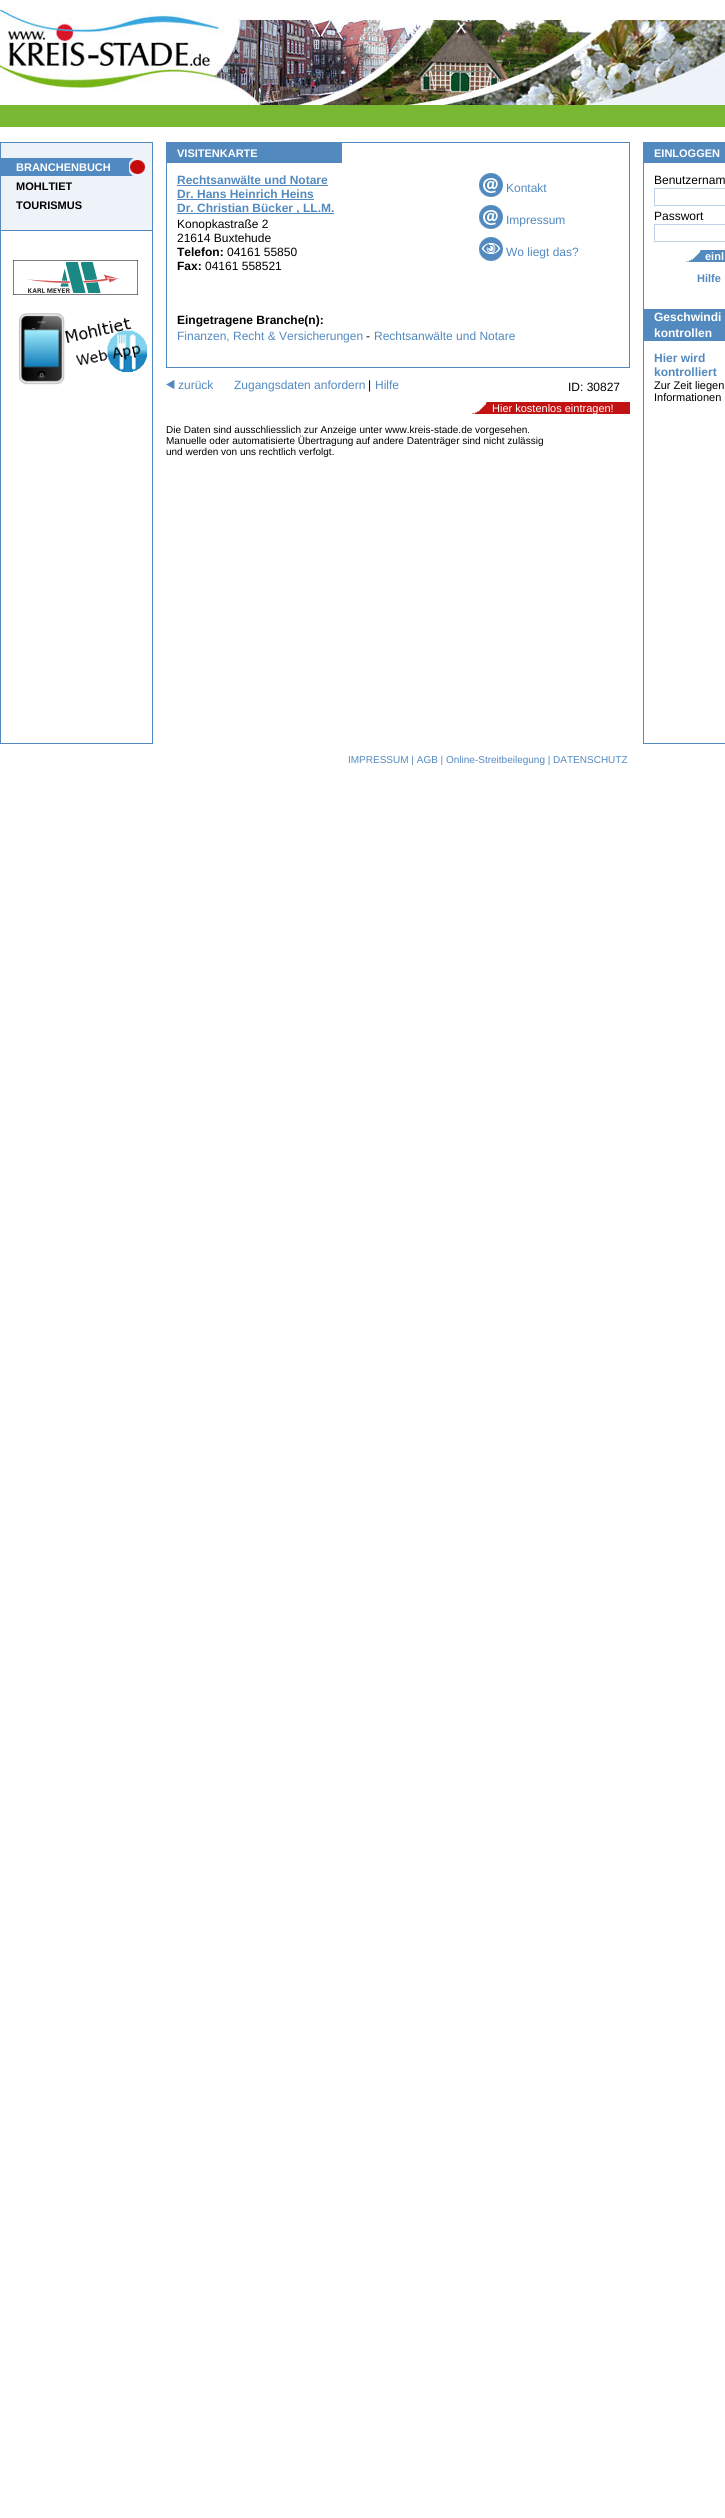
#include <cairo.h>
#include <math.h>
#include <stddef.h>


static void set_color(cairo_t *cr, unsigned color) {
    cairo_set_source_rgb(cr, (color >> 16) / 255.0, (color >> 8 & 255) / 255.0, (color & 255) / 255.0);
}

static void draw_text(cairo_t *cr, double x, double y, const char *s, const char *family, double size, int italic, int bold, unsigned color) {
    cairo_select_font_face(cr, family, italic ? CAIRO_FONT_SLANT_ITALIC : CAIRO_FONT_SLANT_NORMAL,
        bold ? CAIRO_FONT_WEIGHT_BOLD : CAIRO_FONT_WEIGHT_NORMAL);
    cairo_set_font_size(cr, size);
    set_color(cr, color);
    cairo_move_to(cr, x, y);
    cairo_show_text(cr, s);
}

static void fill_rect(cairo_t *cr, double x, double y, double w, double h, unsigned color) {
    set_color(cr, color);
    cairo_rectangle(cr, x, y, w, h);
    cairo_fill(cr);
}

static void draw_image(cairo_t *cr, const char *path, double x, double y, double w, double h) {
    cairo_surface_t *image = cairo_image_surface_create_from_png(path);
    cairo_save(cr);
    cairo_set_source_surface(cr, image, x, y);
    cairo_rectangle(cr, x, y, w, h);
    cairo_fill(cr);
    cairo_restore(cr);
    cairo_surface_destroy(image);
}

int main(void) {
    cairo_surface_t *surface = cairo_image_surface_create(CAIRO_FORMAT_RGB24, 725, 2518);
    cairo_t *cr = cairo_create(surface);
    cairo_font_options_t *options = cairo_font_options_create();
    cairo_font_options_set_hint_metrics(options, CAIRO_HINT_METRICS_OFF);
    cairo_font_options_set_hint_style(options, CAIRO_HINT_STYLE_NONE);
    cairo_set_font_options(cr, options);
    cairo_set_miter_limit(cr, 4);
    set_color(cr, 0xFFFFFF);
    cairo_paint(cr);
    draw_image(cr, "assets/img1.png", 0, 10, 725, 95);
    fill_rect(cr, 0, 105, 725, 22, 0x78B833);
    cairo_rectangle(cr, 0.5, 142.5, 152, 601);
    set_color(cr, 0x5289BF);
    cairo_set_line_width(cr, 1);
    cairo_stroke(cr);
    fill_rect(cr, 1, 143, 151, 87, 0xEDF3F9);
    fill_rect(cr, 1, 230, 151, 1, 0x5289BF);
    draw_image(cr, "assets/img2.png", 1, 158, 144, 18);
    draw_text(cr, 16, 171, "BRANCHENBUCH", "Liberation Sans", 11, 0, 1, 0xFFFFFF);
    draw_text(cr, 16, 190, "MOHLTIET", "Liberation Sans", 11, 0, 1, 0x000000);
    draw_text(cr, 16, 209, "TOURISMUS", "Liberation Sans", 11, 0, 1, 0x000000);
    draw_image(cr, "assets/img3.png", 13, 260, 125, 35);
    draw_image(cr, "assets/img4.png", 19, 313, 129, 72);
    cairo_rectangle(cr, 166.5, 142.5, 463, 225);
    set_color(cr, 0x5289BF);
    cairo_stroke(cr);
    fill_rect(cr, 167, 143, 175, 20, 0x5289BF);
    draw_text(cr, 177, 157, "VISITENKARTE", "Liberation Sans", 11, 0, 1, 0xFFFFFF);
    draw_text(cr, 177, 184, "Rechtsanwälte und Notare", "Liberation Sans", 12, 0, 1, 0x5289BF);
    fill_rect(cr, 177, 185, 151, 1, 0x5289BF);
    draw_text(cr, 177, 198, "Dr. Hans Heinrich Heins", "Liberation Sans", 12, 0, 1, 0x5289BF);
    fill_rect(cr, 177, 199, 137, 1, 0x5289BF);
    fill_rect(cr, 177, 213, 157, 1, 0x5289BF);
    draw_text(cr, 177, 212, "Dr. Christian Bücker , LL.M.", "Liberation Sans", 12, 0, 1, 0x5289BF);
    draw_text(cr, 177, 228, "Konopkastraße 2", "Liberation Sans", 12, 0, 0, 0x000000);
    draw_text(cr, 177, 242, "21614 Buxtehude", "Liberation Sans", 12, 0, 0, 0x000000);
    draw_text(cr, 177, 256, "Telefon:", "Liberation Sans", 12, 0, 1, 0x000000);
    draw_text(cr, 227, 256, "04161 55850", "Liberation Sans", 12, 0, 0, 0x000000);
    draw_text(cr, 177, 270, "Fax:", "Liberation Sans", 12, 0, 1, 0x000000);
    draw_text(cr, 205, 270, "04161 558521", "Liberation Sans", 12, 0, 0, 0x000000);
    draw_image(cr, "assets/img5.png", 479, 173, 24, 24);
    draw_text(cr, 506, 192, "Kontakt", "Liberation Sans", 12, 0, 0, 0x5289BF);
    draw_image(cr, "assets/img5.png", 479, 205, 24, 24);
    draw_text(cr, 506, 224, "Impressum", "Liberation Sans", 12, 0, 0, 0x5289BF);
    draw_image(cr, "assets/img6.png", 479, 237, 24, 24);
    draw_text(cr, 506, 256, "Wo liegt das?", "Liberation Sans", 12, 0, 0, 0x5289BF);
    draw_text(cr, 177, 324, "Eingetragene Branche(n):", "Liberation Sans", 12, 0, 1, 0x000000);
    draw_text(cr, 177, 340, "Finanzen, Recht & Versicherungen", "Liberation Sans", 12, 0, 0, 0x5289BF);
    draw_text(cr, 366, 340, "-", "Liberation Sans", 12, 0, 0, 0x000000);
    draw_text(cr, 374, 340, "Rechtsanwälte und Notare", "Liberation Sans", 12, 0, 0, 0x5289BF);
    draw_image(cr, "assets/img7.png", 166, 380, 9, 9);
    draw_text(cr, 178, 389, "zurück", "Liberation Sans", 12, 0, 0, 0x5289BF);
    draw_text(cr, 234, 389, "Zugangsdaten anfordern", "Liberation Sans", 12, 0, 0, 0x5289BF);
    draw_text(cr, 368, 389, "|", "Liberation Sans", 12, 0, 0, 0x000000);
    draw_text(cr, 375, 389, "Hilfe", "Liberation Sans", 12, 0, 0, 0x5289BF);
    draw_text(cr, 568, 391, "ID: 30827", "Liberation Sans", 12, 0, 0, 0x000000);
    draw_image(cr, "assets/img8.png", 472, 402, 158, 12);
    draw_text(cr, 492, 412, "Hier kostenlos eintragen!", "Liberation Sans", 11, 0, 0, 0xFFFFFF);
    draw_text(cr, 166, 433, "Die Daten sind ausschliesslich zur Anzeige unter www.kreis-stade.de vorgesehen.", "Liberation Sans", 10, 0, 0, 0x000000);
    draw_text(cr, 166, 444, "Manuelle oder automatisierte Übertragung auf andere Datenträger sind nicht zulässig", "Liberation Sans", 10, 0, 0, 0x000000);
    draw_text(cr, 166, 455, "und werden von uns rechtlich verfolgt.", "Liberation Sans", 10, 0, 0, 0x000000);
    cairo_rectangle(cr, 643.5, 142.5, 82, 601);
    set_color(cr, 0x5289BF);
    cairo_stroke(cr);
    fill_rect(cr, 644, 143, 81, 20, 0x5289BF);
    draw_text(cr, 654, 157, "EINLOGGEN", "Liberation Sans", 11, 0, 1, 0xFFFFFF);
    draw_text(cr, 654, 184, "Benutzernam", "Liberation Sans", 12, 0, 0, 0x000000);
    cairo_rectangle(cr, 654.5, 188.5, 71, 17);
    set_color(cr, 0xBED2E7);
    cairo_stroke(cr);
    draw_text(cr, 654, 220, "Passwort", "Liberation Sans", 12, 0, 0, 0x000000);
    cairo_rectangle(cr, 654.5, 224.5, 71, 17);
    set_color(cr, 0xBED2E7);
    cairo_stroke(cr);
    draw_image(cr, "assets/img9.png", 686, 250, 39, 12);
    draw_text(cr, 705, 260, "einl", "Liberation Sans", 11, 0, 1, 0xFFFFFF);
    draw_text(cr, 697, 282, "Hilfe", "Liberation Sans", 11, 0, 1, 0x5289BF);
    fill_rect(cr, 644, 309, 81, 32, 0x5289BF);
    draw_text(cr, 654, 321, "Geschwindi", "Liberation Sans", 12, 0, 1, 0xFFFFFF);
    draw_text(cr, 654, 337, "kontrollen", "Liberation Sans", 12, 0, 1, 0xFFFFFF);
    draw_text(cr, 654, 362, "Hier wird", "Liberation Sans", 12, 0, 1, 0x5289BF);
    draw_text(cr, 654, 376, "kontrolliert", "Liberation Sans", 12, 0, 1, 0x5289BF);
    draw_text(cr, 654, 389, "Zur Zeit liegen", "Liberation Sans", 11, 0, 0, 0x000000);
    draw_text(cr, 654, 401, "Informationen", "Liberation Sans", 11, 0, 0, 0x000000);
    draw_text(cr, 348, 763, "IMPRESSUM | AGB | Online-Streitbeilegung | DATENSCHUTZ", "Liberation Sans", 10, 0, 0, 0x5289BF);
    cairo_surface_write_to_png(surface, "output.png");
    cairo_font_options_destroy(options);
    cairo_destroy(cr);
    cairo_surface_destroy(surface);
    return 0;
}
